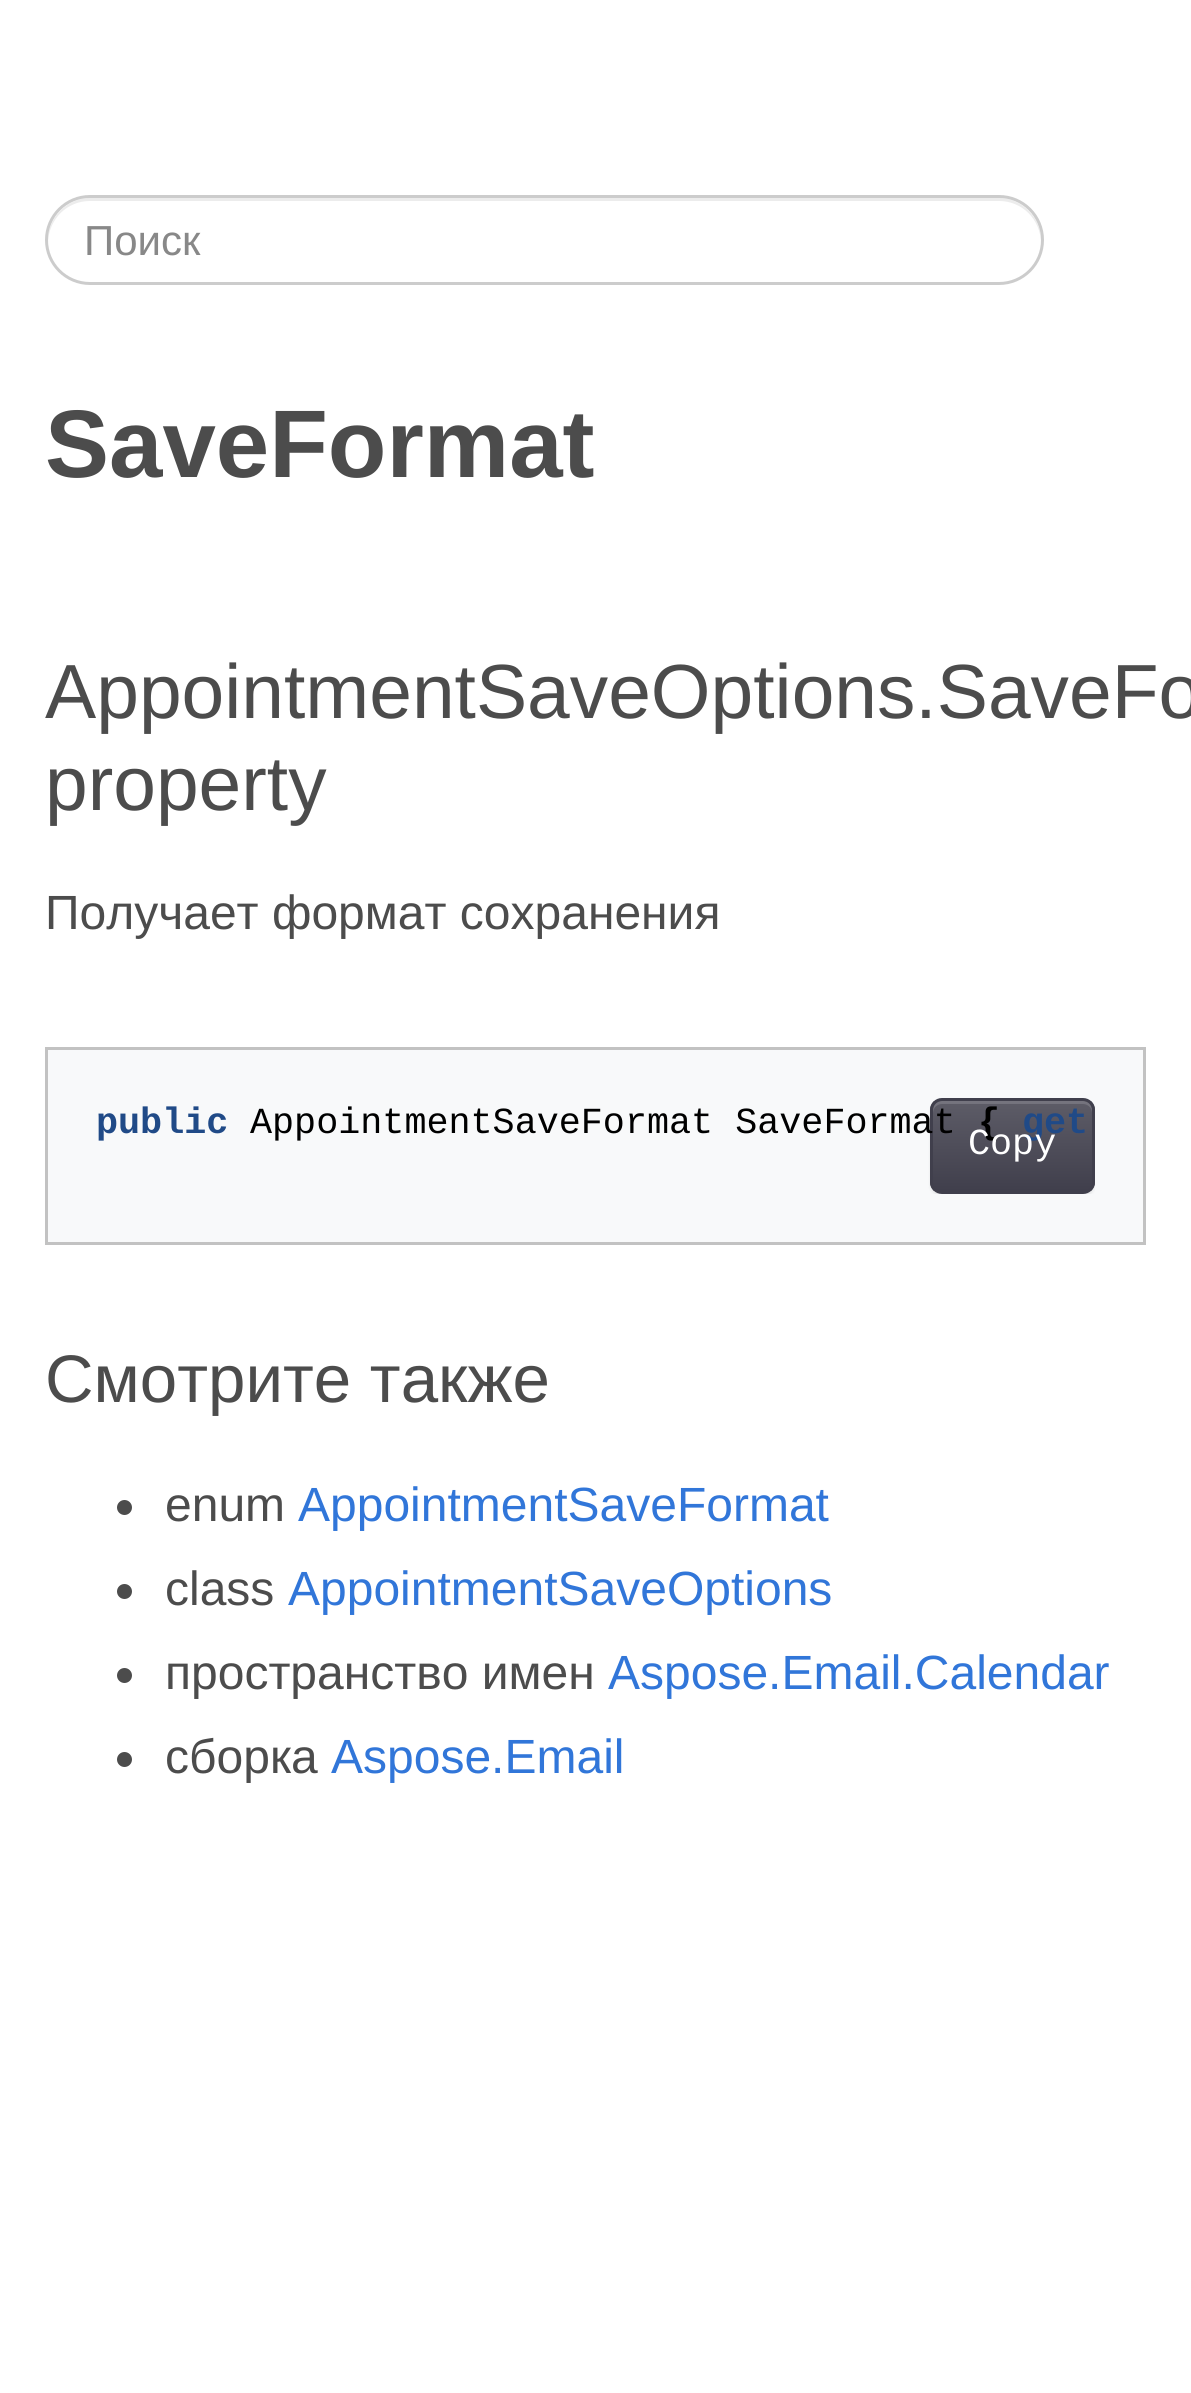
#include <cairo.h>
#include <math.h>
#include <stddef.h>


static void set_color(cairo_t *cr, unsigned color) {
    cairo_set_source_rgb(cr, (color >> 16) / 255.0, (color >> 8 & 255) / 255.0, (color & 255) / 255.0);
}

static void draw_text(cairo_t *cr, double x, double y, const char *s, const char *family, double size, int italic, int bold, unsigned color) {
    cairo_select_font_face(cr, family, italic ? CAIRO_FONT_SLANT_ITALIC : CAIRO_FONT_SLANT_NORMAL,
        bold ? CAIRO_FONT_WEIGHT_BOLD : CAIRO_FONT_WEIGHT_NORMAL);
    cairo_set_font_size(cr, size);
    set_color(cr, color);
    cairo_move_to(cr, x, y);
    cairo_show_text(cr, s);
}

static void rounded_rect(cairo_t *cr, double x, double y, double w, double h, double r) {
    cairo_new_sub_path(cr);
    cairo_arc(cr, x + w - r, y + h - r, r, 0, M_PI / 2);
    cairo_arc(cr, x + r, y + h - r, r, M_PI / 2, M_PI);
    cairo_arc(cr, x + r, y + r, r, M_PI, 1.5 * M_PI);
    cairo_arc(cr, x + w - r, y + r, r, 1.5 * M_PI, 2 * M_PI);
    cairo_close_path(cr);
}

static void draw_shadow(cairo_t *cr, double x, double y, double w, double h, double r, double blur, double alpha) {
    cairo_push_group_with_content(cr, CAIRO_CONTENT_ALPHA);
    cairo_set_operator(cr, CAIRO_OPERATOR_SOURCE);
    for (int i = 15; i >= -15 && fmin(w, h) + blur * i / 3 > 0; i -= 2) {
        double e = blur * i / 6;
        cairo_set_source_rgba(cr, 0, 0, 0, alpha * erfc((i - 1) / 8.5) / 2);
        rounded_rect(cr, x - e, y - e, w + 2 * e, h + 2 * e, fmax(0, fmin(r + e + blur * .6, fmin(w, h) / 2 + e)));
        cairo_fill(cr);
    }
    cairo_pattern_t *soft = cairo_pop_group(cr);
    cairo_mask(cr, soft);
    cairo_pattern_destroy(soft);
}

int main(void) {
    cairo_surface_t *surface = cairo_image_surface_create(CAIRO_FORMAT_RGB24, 1191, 2393);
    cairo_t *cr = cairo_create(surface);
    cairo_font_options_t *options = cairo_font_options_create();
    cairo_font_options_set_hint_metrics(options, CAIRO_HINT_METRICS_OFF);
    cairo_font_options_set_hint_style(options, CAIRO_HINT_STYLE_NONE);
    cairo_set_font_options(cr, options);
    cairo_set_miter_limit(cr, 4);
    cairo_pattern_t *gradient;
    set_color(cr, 0xFFFFFF);
    cairo_paint(cr);
    set_color(cr, 0xECECEC);
    cairo_new_path(cr);
    cairo_move_to(cr, 90, 201);
    cairo_line_to(cr, 999, 201);
    cairo_curve_to(cr, 1022, 201, 1040, 219, 1041, 242);
    cairo_curve_to(cr, 1042, 218, 1022, 198, 999, 198);
    cairo_line_to(cr, 90, 198);
    cairo_curve_to(cr, 67, 198, 47, 218, 48, 242);
    cairo_curve_to(cr, 49, 219, 67, 201, 90, 201);
    cairo_close_path(cr);
    cairo_fill(cr);
    rounded_rect(cr, 46.5, 196.5, 996, 87, 43.5);
    set_color(cr, 0xCCCCCC);
    cairo_set_line_width(cr, 3);
    cairo_stroke(cr);
    draw_text(cr, 84, 255, "Поиск", "Liberation Sans", 42, 0, 0, 0x888888);
    draw_text(cr, 45, 477, "SaveFormat", "Liberation Sans", 96, 0, 1, 0x4C4C4C);
    draw_text(cr, 45, 718, "AppointmentSaveOptions.SaveFo", "Liberation Sans", 76.75, 0, 0, 0x4C4C4C);
    draw_text(cr, 45, 810, "property", "Liberation Sans", 76.75, 0, 0, 0x4C4C4C);
    draw_text(cr, 45, 929, "Получает формат сохранения", "Liberation Sans", 48, 0, 0, 0x4C4C4C);
    set_color(cr, 0xF8F9FA);
    cairo_rectangle(cr, 46.5, 1048.5, 1098, 195);
    cairo_fill_preserve(cr);
    set_color(cr, 0xC2C2C2);
    cairo_stroke(cr);
    draw_text(cr, 96, 1133, "public", "Liberation Mono", 36.75, 0, 1, 0x204A87);
    cairo_save(cr);
    cairo_rectangle(cr, 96, 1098, 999, 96);
    cairo_clip(cr);
    set_color(cr, 0x000000);
    draw_shadow(cr, 930, 1101, 165, 96, 12, 1.5, 0.07);
    cairo_restore(cr);
    cairo_save(cr);
    rounded_rect(cr, 930, 1098, 165, 96, 12);
    cairo_clip(cr);
    gradient = cairo_pattern_create_linear(1013, 1101, 1013, 1191);
    cairo_pattern_add_color_stop_rgba(gradient, 0, 0.365, 0.361, 0.404, 1);
    cairo_pattern_add_color_stop_rgba(gradient, 1, 0.251, 0.247, 0.298, 1);
    cairo_set_source(cr, gradient);
    cairo_pattern_destroy(gradient);
    cairo_rectangle(cr, 930, 1101, 165, 90);
    cairo_fill(cr);
    cairo_restore(cr);
    cairo_set_source_rgba(cr, 1, 1, 1, 0.15);
    cairo_new_path(cr);
    cairo_move_to(cr, 942, 1104);
    cairo_line_to(cr, 1083, 1104);
    cairo_curve_to(cr, 1088, 1104, 1092, 1108, 1092, 1113);
    cairo_line_to(cr, 1092, 1110);
    cairo_curve_to(cr, 1092, 1105, 1088, 1101, 1083, 1101);
    cairo_line_to(cr, 942, 1101);
    cairo_curve_to(cr, 937, 1101, 933, 1105, 933, 1110);
    cairo_line_to(cr, 933, 1113);
    cairo_curve_to(cr, 933, 1108, 937, 1104, 942, 1104);
    cairo_close_path(cr);
    cairo_fill(cr);
    rounded_rect(cr, 931.5, 1099.5, 162, 93, 10.5);
    set_color(cr, 0x403F4C);
    cairo_stroke(cr);
    draw_text(cr, 250, 1133, "AppointmentSaveFormat SaveFormat", "Liberation Mono", 36.75, 0, 0, 0x000000);
    draw_text(cr, 978, 1133, "{", "Liberation Mono", 36.75, 0, 1, 0x000000);
    draw_text(cr, 1022, 1133, "get", "Liberation Mono", 36.75, 0, 1, 0x204A87);
    draw_text(cr, 968, 1154, "Copy", "Liberation Mono", 36.75, 0, 0, 0xFFFFFF);
    draw_text(cr, 45, 1402, "Смотрите также", "Liberation Sans", 67.25, 0, 0, 0x4C4C4C);
    cairo_new_path(cr);
    cairo_arc(cr, 124.5, 1507.5, 7.5, 0, 2 * M_PI);
    cairo_fill(cr);
    draw_text(cr, 165, 1521, "enum", "Liberation Sans", 48, 0, 0, 0x4C4C4C);
    draw_text(cr, 298, 1521, "AppointmentSaveFormat", "Liberation Sans", 48, 0, 0, 0x3176D9);
    set_color(cr, 0x4C4C4C);
    cairo_new_path(cr);
    cairo_arc(cr, 124.5, 1591.5, 7.5, 0, 2 * M_PI);
    cairo_fill(cr);
    draw_text(cr, 165, 1605, "class", "Liberation Sans", 48, 0, 0, 0x4C4C4C);
    draw_text(cr, 288, 1605, "AppointmentSaveOptions", "Liberation Sans", 48, 0, 0, 0x3176D9);
    set_color(cr, 0x4C4C4C);
    cairo_new_path(cr);
    cairo_arc(cr, 124.5, 1675.5, 7.5, 0, 2 * M_PI);
    cairo_fill(cr);
    draw_text(cr, 165, 1689, "пространство имен", "Liberation Sans", 48, 0, 0, 0x4C4C4C);
    draw_text(cr, 608, 1689, "Aspose.Email.Calendar", "Liberation Sans", 48, 0, 0, 0x3176D9);
    set_color(cr, 0x4C4C4C);
    cairo_new_path(cr);
    cairo_arc(cr, 124.5, 1759.5, 7.5, 0, 2 * M_PI);
    cairo_fill(cr);
    draw_text(cr, 165, 1773, "сборка", "Liberation Sans", 48, 0, 0, 0x4C4C4C);
    draw_text(cr, 331, 1773, "Aspose.Email", "Liberation Sans", 48, 0, 0, 0x3176D9);
    cairo_surface_write_to_png(surface, "output.png");
    cairo_font_options_destroy(options);
    cairo_destroy(cr);
    cairo_surface_destroy(surface);
    return 0;
}
